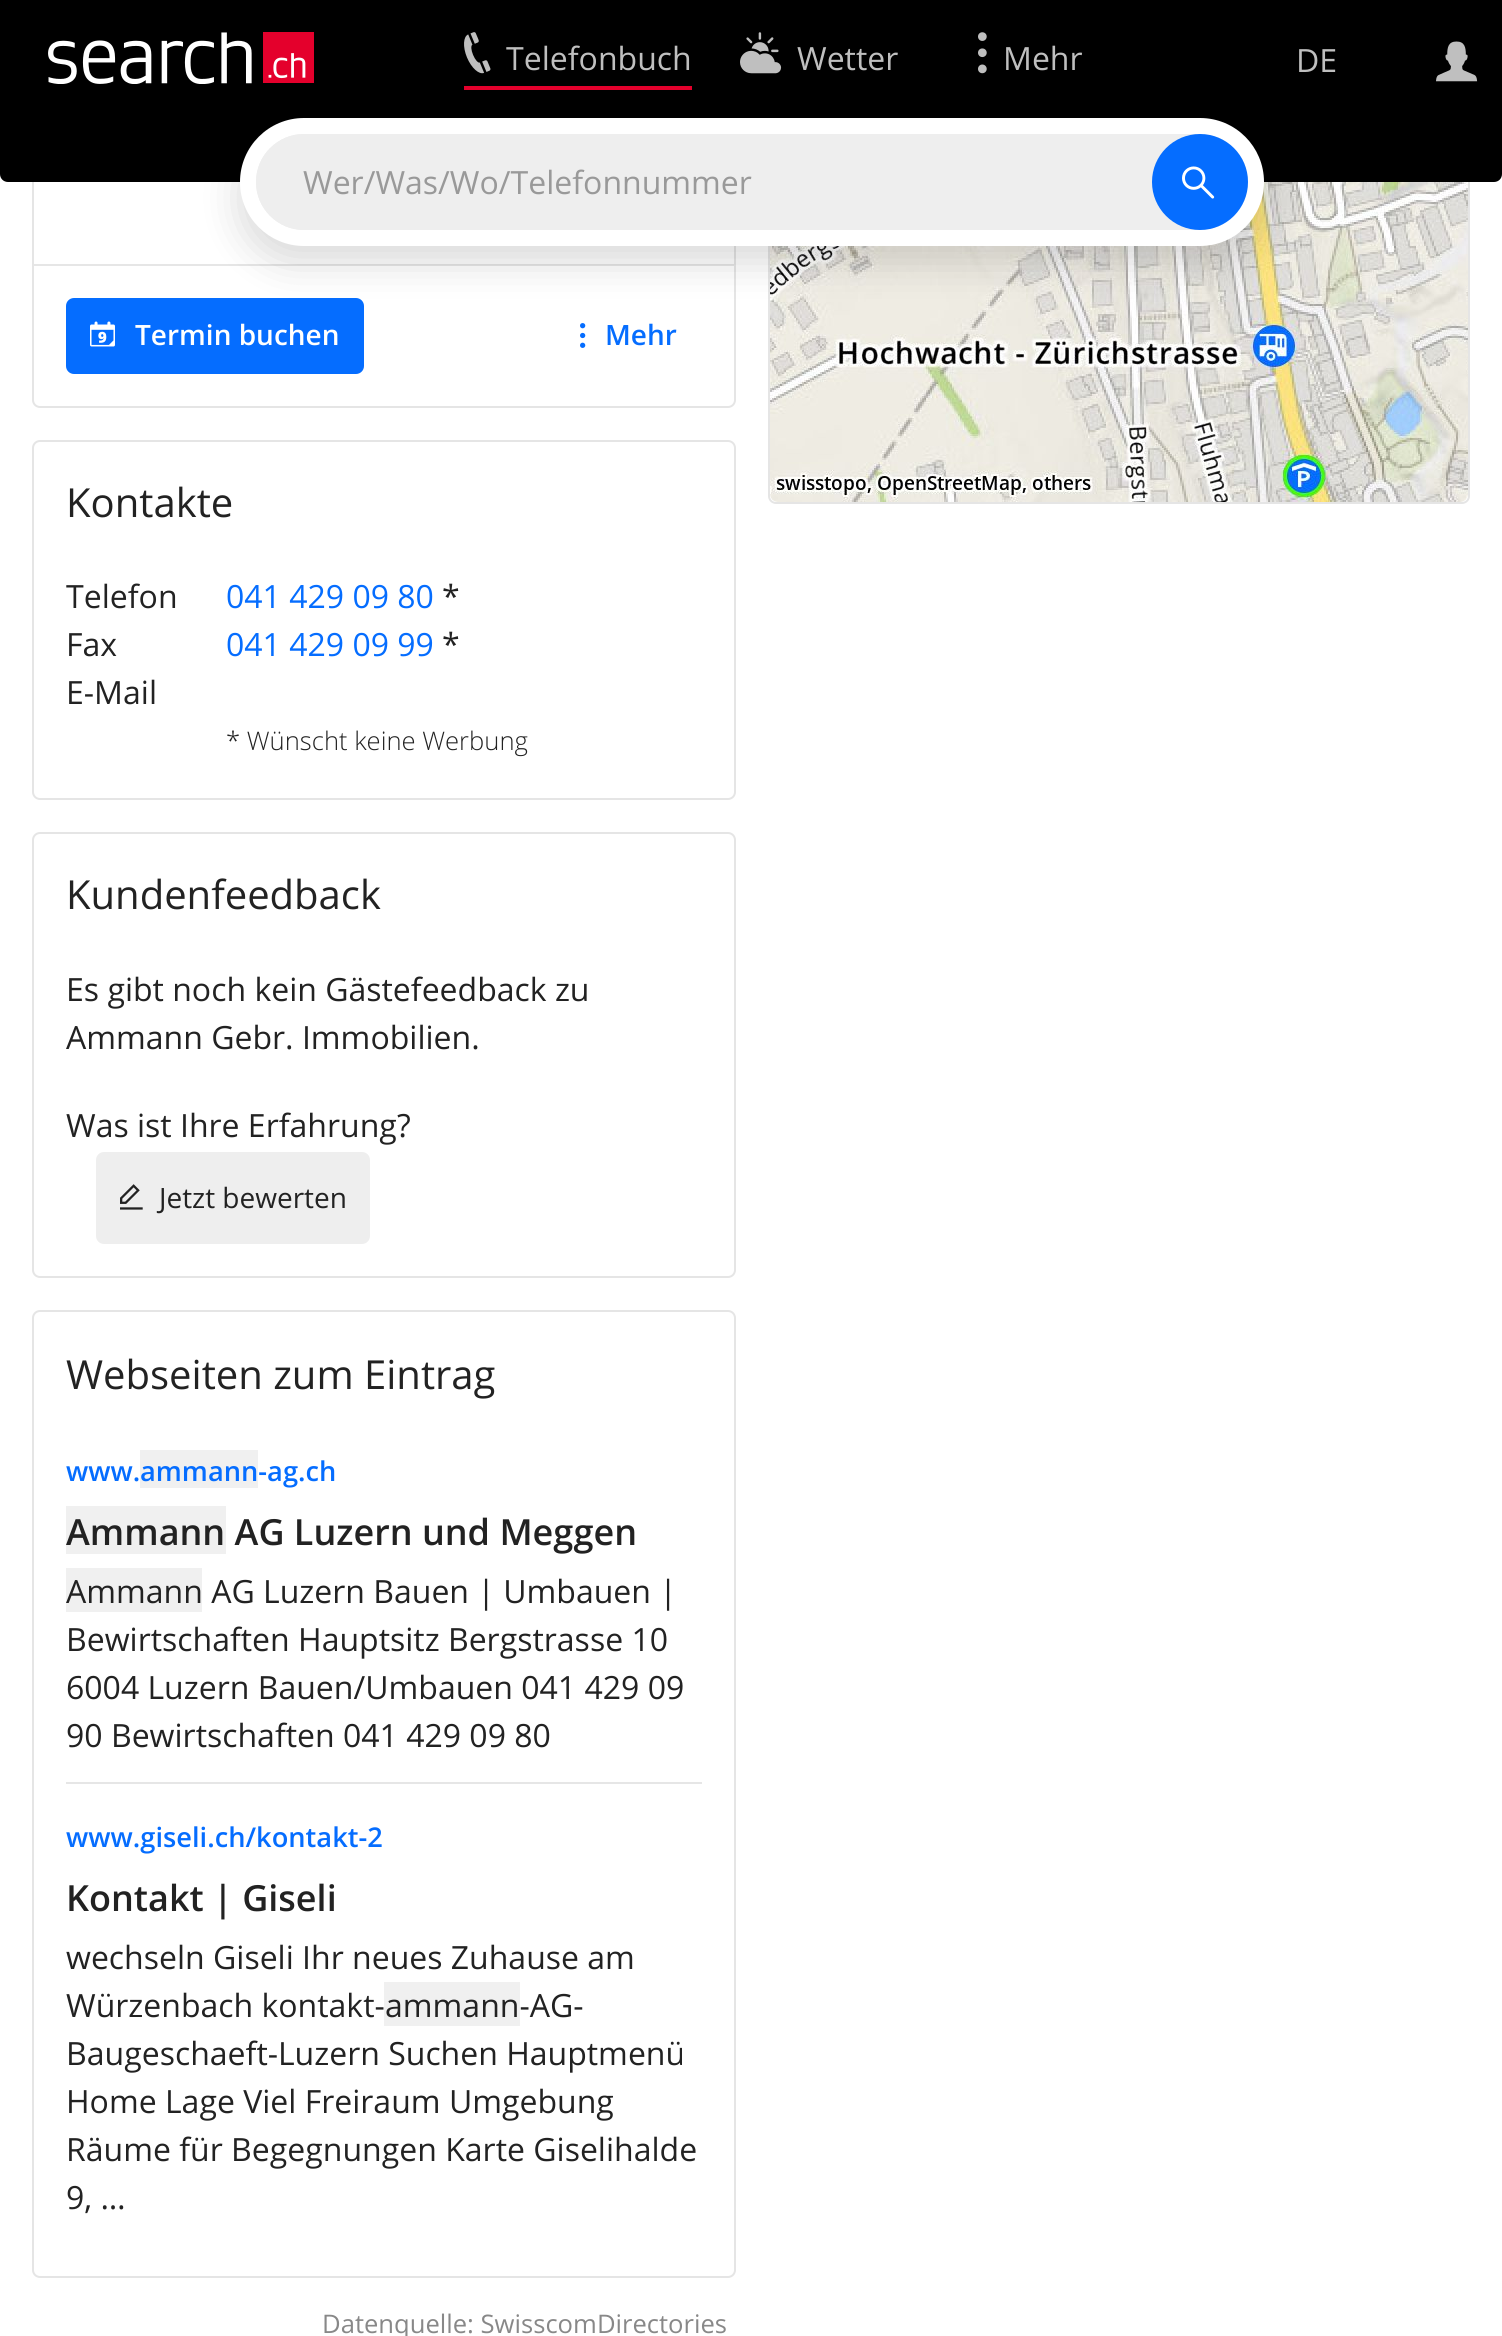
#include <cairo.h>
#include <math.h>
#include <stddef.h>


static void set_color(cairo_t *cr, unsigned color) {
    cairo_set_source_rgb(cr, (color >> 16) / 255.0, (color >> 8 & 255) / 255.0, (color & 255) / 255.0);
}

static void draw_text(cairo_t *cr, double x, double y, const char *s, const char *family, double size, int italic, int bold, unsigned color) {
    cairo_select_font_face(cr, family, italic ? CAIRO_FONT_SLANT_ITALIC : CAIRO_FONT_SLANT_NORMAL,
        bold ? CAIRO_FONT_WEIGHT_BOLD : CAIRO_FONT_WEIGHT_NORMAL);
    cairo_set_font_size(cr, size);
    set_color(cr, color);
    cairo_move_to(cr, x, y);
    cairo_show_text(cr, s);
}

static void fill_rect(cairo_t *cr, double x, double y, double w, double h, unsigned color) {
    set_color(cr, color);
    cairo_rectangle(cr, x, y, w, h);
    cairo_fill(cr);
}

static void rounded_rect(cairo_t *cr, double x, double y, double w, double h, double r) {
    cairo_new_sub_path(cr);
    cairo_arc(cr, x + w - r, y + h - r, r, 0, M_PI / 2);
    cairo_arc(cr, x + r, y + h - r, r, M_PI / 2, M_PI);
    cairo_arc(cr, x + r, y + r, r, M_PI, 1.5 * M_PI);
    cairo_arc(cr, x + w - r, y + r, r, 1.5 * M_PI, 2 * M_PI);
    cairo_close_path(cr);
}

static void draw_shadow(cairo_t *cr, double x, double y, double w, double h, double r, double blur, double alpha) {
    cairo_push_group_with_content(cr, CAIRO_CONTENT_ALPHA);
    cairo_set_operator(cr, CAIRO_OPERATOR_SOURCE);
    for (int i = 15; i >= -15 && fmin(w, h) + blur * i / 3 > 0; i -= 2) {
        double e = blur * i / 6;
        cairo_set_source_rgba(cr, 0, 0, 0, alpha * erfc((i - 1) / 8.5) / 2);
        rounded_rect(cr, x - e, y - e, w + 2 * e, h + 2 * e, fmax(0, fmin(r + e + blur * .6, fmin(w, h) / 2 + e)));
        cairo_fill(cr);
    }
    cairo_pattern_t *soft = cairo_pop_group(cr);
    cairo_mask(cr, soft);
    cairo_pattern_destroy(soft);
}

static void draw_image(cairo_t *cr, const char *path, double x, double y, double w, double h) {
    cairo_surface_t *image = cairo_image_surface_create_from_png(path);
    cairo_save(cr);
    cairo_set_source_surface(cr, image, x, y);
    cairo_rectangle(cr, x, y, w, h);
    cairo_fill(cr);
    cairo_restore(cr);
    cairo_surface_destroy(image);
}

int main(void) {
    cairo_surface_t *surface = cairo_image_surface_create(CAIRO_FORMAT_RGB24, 1502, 2336);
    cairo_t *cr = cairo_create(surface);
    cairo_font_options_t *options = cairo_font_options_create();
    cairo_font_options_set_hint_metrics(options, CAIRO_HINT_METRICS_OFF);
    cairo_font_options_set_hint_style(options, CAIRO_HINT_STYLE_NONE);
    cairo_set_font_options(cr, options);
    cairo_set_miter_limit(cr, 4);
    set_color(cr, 0xFFFFFF);
    cairo_paint(cr);
    rounded_rect(cr, 769, -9, 700, 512, 7);
    set_color(cr, 0xE5E5E5);
    cairo_stroke(cr);
    rounded_rect(cr, 33, -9, 702, 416, 7);
    cairo_stroke(cr);
    fill_rect(cr, 0, 0, 1502, 118, 0x000000);
    draw_image(cr, "assets/img1.png", 48, 32, 266, 52);
    fill_rect(cr, 464, 86, 228, 4, 0xE4002C);
    draw_image(cr, "assets/img2.png", 464, 32, 27, 42);
    draw_text(cr, 506, 70, "Telefonbuch", "Open Sans", 32, 0, 0, 0xBFBFBF);
    draw_image(cr, "assets/img3.png", 740, 32, 42, 42);
    draw_text(cr, 797, 70, "Wetter", "Open Sans", 32, 0, 0, 0xBFBFBF);
    draw_image(cr, "assets/img4.png", 978, 32, 9, 42);
    draw_text(cr, 1003, 70, "Mehr", "Open Sans", 32, 0, 0, 0xBFBFBF);
    draw_text(cr, 1296, 72, "DE", "Open Sans", 32, 0, 0, 0xBFBFBF);
    draw_image(cr, "assets/img5.png", 1436, 41, 42, 41);
    set_color(cr, 0x000000);
    cairo_new_path(cr);
    cairo_move_to(cr, 0, 118);
    cairo_line_to(cr, 1502, 118);
    cairo_line_to(cr, 1502, 174);
    cairo_curve_to(cr, 1502, 178.5, 1498.5, 182, 1494, 182);
    cairo_line_to(cr, 8, 182);
    cairo_curve_to(cr, 3.5, 182, 0, 178.5, 0, 174);
    cairo_close_path(cr);
    cairo_fill(cr);
    draw_image(cr, "assets/img7.png", 770, 182, 698, 320);
    fill_rect(cr, 34, 264, 700, 2, 0xE6E6E6);
    set_color(cr, 0x056DFF);
    rounded_rect(cr, 66, 298, 298, 76, 8);
    cairo_fill(cr);
    set_color(cr, 0x000000);
    draw_shadow(cr, 240, 134, 1024, 128, 64, 20, 0.15);
    set_color(cr, 0xFFFFFF);
    rounded_rect(cr, 240, 118, 1024, 128, 64);
    cairo_fill(cr);
    set_color(cr, 0xEEEEEE);
    rounded_rect(cr, 256, 134, 992, 96, 48);
    cairo_fill(cr);
    rounded_rect(cr, 256, 134, 896, 96, 48);
    cairo_fill(cr);
    draw_text(cr, 303, 194, "Wer/Was/Wo/Telefonnummer", "Open Sans", 32, 0, 0, 0x999999);
    set_color(cr, 0x056DFF);
    cairo_new_path(cr);
    cairo_arc(cr, 1200, 182, 48, 0, 2 * M_PI);
    cairo_fill(cr);
    draw_image(cr, "assets/img6.png", 1182, 166, 33, 33);
    draw_image(cr, "assets/img8.png", 90, 321, 25, 26);
    draw_text(cr, 135, 345, "Termin buchen", "Open Sans SemiBold", 28, 0, 0, 0xFFFFFF);
    draw_image(cr, "assets/img9.png", 580, 323, 6, 25);
    draw_text(cr, 605, 345, "Mehr", "Open Sans SemiBold", 28, 0, 0, 0x056DFF);
    rounded_rect(cr, 33, 441, 702, 358, 7);
    set_color(cr, 0xE5E5E5);
    cairo_stroke(cr);
    draw_text(cr, 66, 517, "Kontakte", "Open Sans", 40, 0, 0, 0x222222);
    draw_text(cr, 66, 608, "Telefon", "Open Sans", 32, 0, 0, 0x222222);
    draw_text(cr, 226, 608, "041 429 09 80", "Open Sans", 32, 0, 0, 0x056DFF);
    draw_text(cr, 442, 608, "*", "Open Sans", 32, 0, 0, 0x222222);
    draw_text(cr, 66, 656, "Fax", "Open Sans", 32, 0, 0, 0x222222);
    draw_text(cr, 226, 656, "041 429 09 99", "Open Sans", 32, 0, 0, 0x056DFF);
    draw_text(cr, 442, 656, "*", "Open Sans", 32, 0, 0, 0x222222);
    draw_text(cr, 66, 704, "E-Mail", "Open Sans", 32, 0, 0, 0x222222);
    draw_text(cr, 226, 750, "* Wünscht keine Werbung", "Open Sans Light", 25.6, 0, 0, 0x222222);
    rounded_rect(cr, 33, 833, 702, 444, 7);
    set_color(cr, 0xE5E5E5);
    cairo_stroke(cr);
    draw_text(cr, 66, 909, "Kundenfeedback", "Open Sans", 40, 0, 0, 0x222222);
    draw_text(cr, 66, 1001, "Es gibt noch kein Gästefeedback zu", "Open Sans", 32, 0, 0, 0x222222);
    draw_text(cr, 66, 1049, "Ammann Gebr. Immobilien.", "Open Sans", 32, 0, 0, 0x222222);
    draw_text(cr, 66, 1137, "Was ist Ihre Erfahrung?", "Open Sans", 32, 0, 0, 0x222222);
    set_color(cr, 0xEEEEEE);
    rounded_rect(cr, 96, 1152, 274, 92, 8);
    cairo_fill(cr);
    draw_image(cr, "assets/img10.png", 120, 1184, 23, 26);
    draw_text(cr, 159, 1208, "Jetzt bewerten", "Open Sans", 28, 0, 0, 0x222222);
    rounded_rect(cr, 33, 1311, 702, 966, 7);
    set_color(cr, 0xE5E5E5);
    cairo_stroke(cr);
    draw_text(cr, 66, 1389, "Webseiten zum Eintrag", "Open Sans", 40, 0, 0, 0x222222);
    fill_rect(cr, 66, 1782, 636, 2, 0xE6E6E6);
    draw_text(cr, 66, 1481, "www.", "Open Sans SemiBold", 27.25, 0, 0, 0x056DFF);
    fill_rect(cr, 140, 1450, 118, 38, 0xF0F0F0);
    draw_text(cr, 140, 1481, "ammann-ag.ch", "Open Sans SemiBold", 27.25, 0, 0, 0x056DFF);
    fill_rect(cr, 66, 1506, 160, 48, 0xF0F0F0);
    draw_text(cr, 66, 1545, "Ammann AG Luzern und Meggen", "Open Sans SemiBold", 36, 0, 0, 0x222222);
    fill_rect(cr, 66, 1568, 136, 44, 0xF0F0F0);
    draw_text(cr, 66, 1603, "Ammann AG Luzern Bauen | Umbauen |", "Open Sans", 32, 0, 0, 0x222222);
    draw_text(cr, 66, 1651, "Bewirtschaften Hauptsitz Bergstrasse 10", "Open Sans", 32, 0, 0, 0x222222);
    draw_text(cr, 66, 1699, "6004 Luzern Bauen/Umbauen 041 429 09", "Open Sans", 32, 0, 0, 0x222222);
    draw_text(cr, 66, 1747, "90 Bewirtschaften 041 429 09 80", "Open Sans", 32, 0, 0, 0x222222);
    draw_text(cr, 66, 1847, "www.giseli.ch/kontakt-2", "Open Sans SemiBold", 27.25, 0, 0, 0x056DFF);
    draw_text(cr, 66, 1911, "Kontakt | Giseli", "Open Sans SemiBold", 36, 0, 0, 0x222222);
    draw_text(cr, 66, 1969, "wechseln Giseli Ihr neues Zuhause am", "Open Sans", 32, 0, 0, 0x222222);
    draw_text(cr, 66, 2017, "Würzenbach kontakt-", "Open Sans", 32, 0, 0, 0x222222);
    fill_rect(cr, 384, 1982, 136, 44, 0xF0F0F0);
    draw_text(cr, 385, 2017, "ammann-AG-", "Open Sans", 32, 0, 0, 0x222222);
    draw_text(cr, 66, 2065, "Baugeschaeft-Luzern Suchen Hauptmenü", "Open Sans", 32, 0, 0, 0x222222);
    draw_text(cr, 66, 2113, "Home Lage Viel Freiraum Umgebung", "Open Sans", 32, 0, 0, 0x222222);
    draw_text(cr, 66, 2161, "Räume für Begegnungen Karte Giselihalde", "Open Sans", 32, 0, 0, 0x222222);
    draw_text(cr, 66, 2209, "9, …", "Open Sans", 32, 0, 0, 0x222222);
    draw_text(cr, 322, 2333, "Datenquelle: SwisscomDirectories", "Open Sans", 25.6, 0, 0, 0x888888);
    cairo_surface_write_to_png(surface, "output.png");
    cairo_font_options_destroy(options);
    cairo_destroy(cr);
    cairo_surface_destroy(surface);
    return 0;
}
